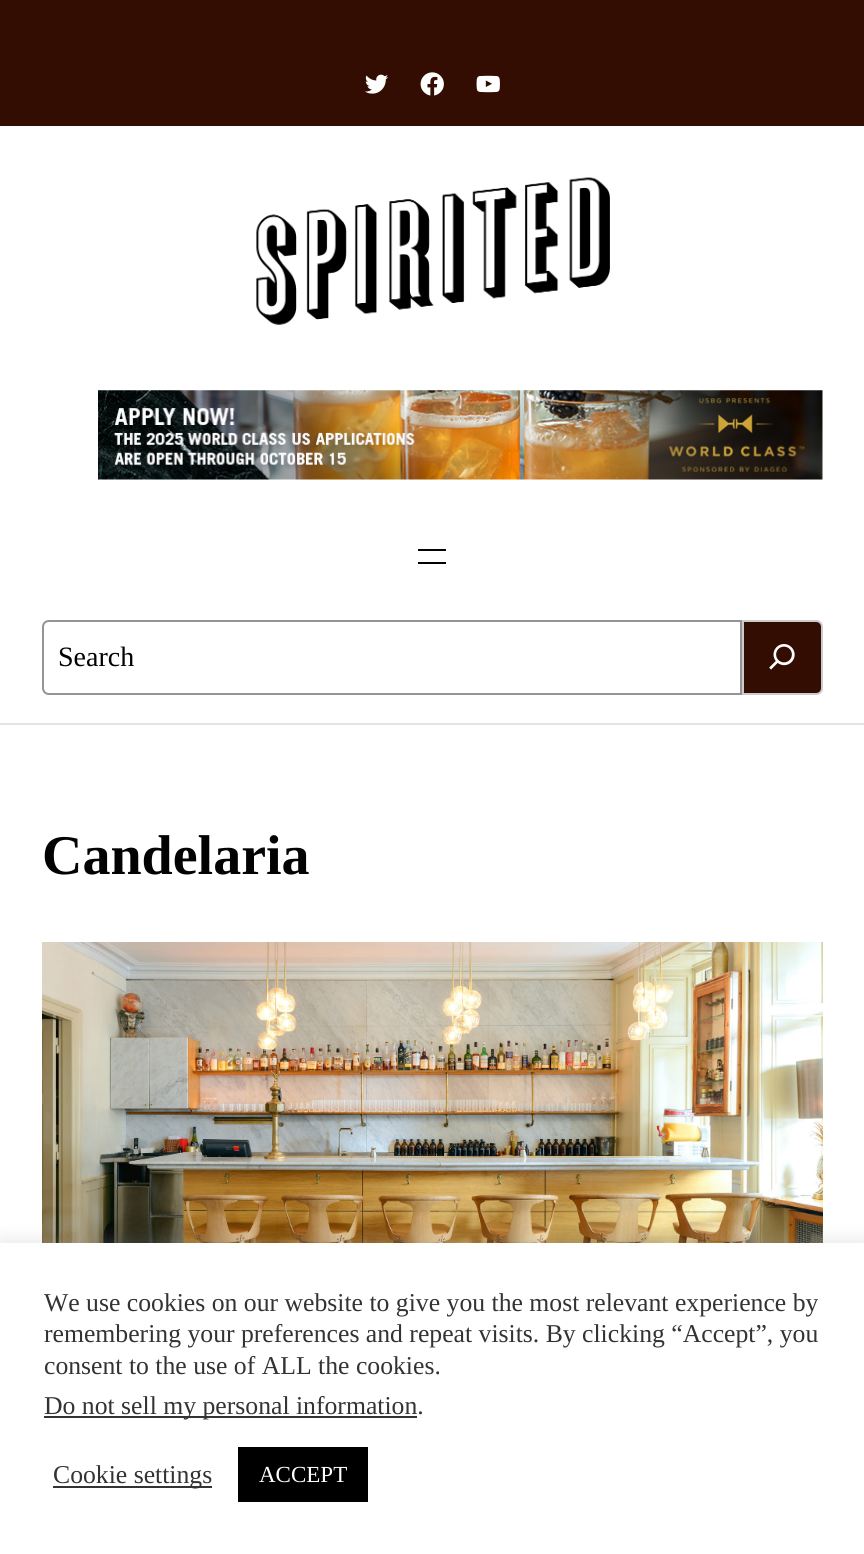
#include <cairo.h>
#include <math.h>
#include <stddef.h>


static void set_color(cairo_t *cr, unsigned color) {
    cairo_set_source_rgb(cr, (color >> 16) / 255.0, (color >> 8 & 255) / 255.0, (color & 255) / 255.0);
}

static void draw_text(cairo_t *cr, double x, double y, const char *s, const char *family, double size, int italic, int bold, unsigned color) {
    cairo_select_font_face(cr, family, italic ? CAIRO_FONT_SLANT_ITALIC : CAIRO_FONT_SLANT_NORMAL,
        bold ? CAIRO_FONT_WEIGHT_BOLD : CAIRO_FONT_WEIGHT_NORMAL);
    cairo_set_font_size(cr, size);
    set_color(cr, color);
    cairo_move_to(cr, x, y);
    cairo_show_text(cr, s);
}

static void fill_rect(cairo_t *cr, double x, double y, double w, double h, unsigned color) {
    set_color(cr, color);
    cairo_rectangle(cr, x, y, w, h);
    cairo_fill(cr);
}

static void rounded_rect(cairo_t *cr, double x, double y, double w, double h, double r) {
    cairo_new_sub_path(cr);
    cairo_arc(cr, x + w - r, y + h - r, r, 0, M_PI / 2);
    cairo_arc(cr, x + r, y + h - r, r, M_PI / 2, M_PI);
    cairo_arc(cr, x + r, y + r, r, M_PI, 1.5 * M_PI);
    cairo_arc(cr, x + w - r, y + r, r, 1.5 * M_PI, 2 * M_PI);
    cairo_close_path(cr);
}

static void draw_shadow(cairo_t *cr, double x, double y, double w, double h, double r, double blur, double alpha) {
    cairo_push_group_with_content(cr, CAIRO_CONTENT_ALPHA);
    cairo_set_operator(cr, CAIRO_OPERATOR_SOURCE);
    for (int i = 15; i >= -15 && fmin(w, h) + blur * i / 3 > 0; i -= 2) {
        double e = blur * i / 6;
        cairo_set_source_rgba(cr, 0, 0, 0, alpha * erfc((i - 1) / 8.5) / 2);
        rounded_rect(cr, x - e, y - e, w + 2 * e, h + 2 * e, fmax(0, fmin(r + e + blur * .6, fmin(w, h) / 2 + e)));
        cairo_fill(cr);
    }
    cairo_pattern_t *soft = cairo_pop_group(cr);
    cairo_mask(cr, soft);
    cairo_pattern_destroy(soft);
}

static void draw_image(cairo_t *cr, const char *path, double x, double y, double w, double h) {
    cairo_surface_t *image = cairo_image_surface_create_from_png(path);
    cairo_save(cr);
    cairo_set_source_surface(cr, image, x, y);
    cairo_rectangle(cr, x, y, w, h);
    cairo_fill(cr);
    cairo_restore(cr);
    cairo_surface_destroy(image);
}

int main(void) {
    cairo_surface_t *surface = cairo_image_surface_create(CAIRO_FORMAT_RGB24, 864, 1554);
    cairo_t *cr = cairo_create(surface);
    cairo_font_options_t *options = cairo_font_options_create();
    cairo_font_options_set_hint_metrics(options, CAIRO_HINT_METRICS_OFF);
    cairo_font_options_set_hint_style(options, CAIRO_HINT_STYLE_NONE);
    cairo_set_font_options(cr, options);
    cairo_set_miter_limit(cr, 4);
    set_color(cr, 0xFFFFFF);
    cairo_paint(cr);
    fill_rect(cr, 0, 0, 864, 126, 0x330D01);
    draw_image(cr, "assets/img1.png", 365, 74, 23, 20);
    draw_image(cr, "assets/img2.png", 420, 72, 24, 24);
    draw_image(cr, "assets/img3.png", 476, 75, 24, 18);
    draw_image(cr, "assets/img4.png", 256, 177, 354, 148);
    draw_image(cr, "assets/img5.png", 98, 390, 725, 90);
    fill_rect(cr, 0, 723, 864, 2, 0xE5E4E3);
    fill_rect(cr, 418, 549, 28, 2, 0x020202);
    fill_rect(cr, 418, 562, 28, 2, 0x020202);
    cairo_new_path(cr);
    cairo_move_to(cr, 49, 621);
    cairo_line_to(cr, 741, 621);
    cairo_line_to(cr, 741, 694);
    cairo_line_to(cr, 49, 694);
    cairo_curve_to(cr, 45.5, 694, 43, 691.5, 43, 688);
    cairo_line_to(cr, 43, 627);
    cairo_curve_to(cr, 43, 623.5, 45.5, 621, 49, 621);
    cairo_close_path(cr);
    set_color(cr, 0x949494);
    cairo_stroke(cr);
    draw_text(cr, 58, 666, "Search", "Liberation Serif", 28, 0, 0, 0x020202);
    set_color(cr, 0x330D01);
    cairo_new_path(cr);
    cairo_move_to(cr, 743, 621);
    cairo_line_to(cr, 816, 621);
    cairo_curve_to(cr, 819.5, 621, 822, 623.5, 822, 627);
    cairo_line_to(cr, 822, 688);
    cairo_curve_to(cr, 822, 691.5, 819.5, 694, 816, 694);
    cairo_line_to(cr, 743, 694);
    cairo_close_path(cr);
    cairo_fill_preserve(cr);
    set_color(cr, 0xCCCCCC);
    cairo_stroke(cr);
    draw_image(cr, "assets/img6.png", 769, 644, 26, 26);
    draw_text(cr, 42, 874, "Candelaria", "Liberation Serif", 56, 0, 1, 0x020202);
    draw_image(cr, "assets/img7.png", 42, 942, 781, 301);
    set_color(cr, 0xACABAB);
    draw_shadow(cr, 0, 1241, 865, 311, 0, 9, 0.3);
    fill_rect(cr, 0, 1243, 864, 311, 0xFFFFFF);
    draw_text(cr, 44, 1311, "We use cookies on our website to give you the most relevant experience by", "Liberation Serif", 25.7, 0, 0, 0x333333);
    draw_text(cr, 44, 1342, "remembering your preferences and repeat visits. By clicking “Accept”, you", "Liberation Serif", 25.7, 0, 0, 0x333333);
    draw_text(cr, 44, 1374, "consent to the use of ALL the cookies.", "Liberation Serif", 25.7, 0, 0, 0x333333);
    fill_rect(cr, 44, 1416, 373, 2, 0x333333);
    draw_text(cr, 44, 1414, "Do not sell my personal information.", "Liberation Serif", 25.7, 0, 0, 0x333333);
    fill_rect(cr, 53, 1486, 159, 2, 0x333333);
    draw_text(cr, 53, 1483, "Cookie settings", "Liberation Serif", 25.7, 0, 0, 0x333333);
    fill_rect(cr, 238, 1447, 130, 55, 0x000000);
    draw_text(cr, 259, 1482, "ACCEPT", "Liberation Serif", 23, 0, 0, 0xFFFFFF);
    cairo_surface_write_to_png(surface, "output.png");
    cairo_font_options_destroy(options);
    cairo_destroy(cr);
    cairo_surface_destroy(surface);
    return 0;
}
